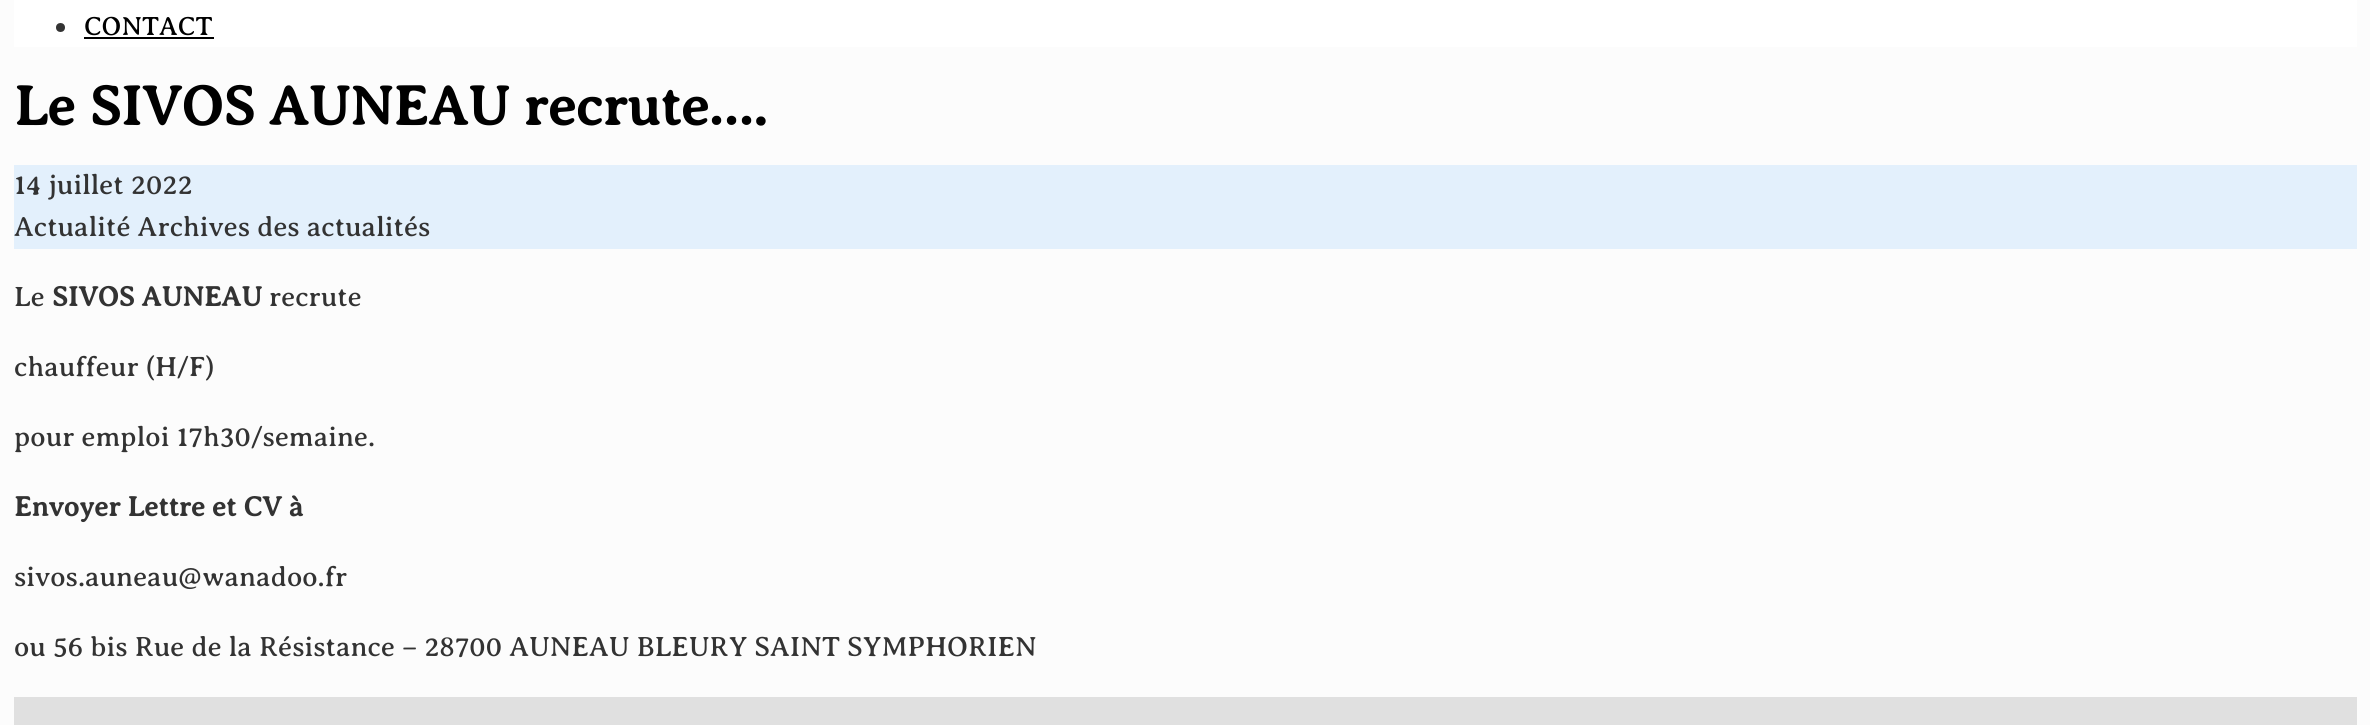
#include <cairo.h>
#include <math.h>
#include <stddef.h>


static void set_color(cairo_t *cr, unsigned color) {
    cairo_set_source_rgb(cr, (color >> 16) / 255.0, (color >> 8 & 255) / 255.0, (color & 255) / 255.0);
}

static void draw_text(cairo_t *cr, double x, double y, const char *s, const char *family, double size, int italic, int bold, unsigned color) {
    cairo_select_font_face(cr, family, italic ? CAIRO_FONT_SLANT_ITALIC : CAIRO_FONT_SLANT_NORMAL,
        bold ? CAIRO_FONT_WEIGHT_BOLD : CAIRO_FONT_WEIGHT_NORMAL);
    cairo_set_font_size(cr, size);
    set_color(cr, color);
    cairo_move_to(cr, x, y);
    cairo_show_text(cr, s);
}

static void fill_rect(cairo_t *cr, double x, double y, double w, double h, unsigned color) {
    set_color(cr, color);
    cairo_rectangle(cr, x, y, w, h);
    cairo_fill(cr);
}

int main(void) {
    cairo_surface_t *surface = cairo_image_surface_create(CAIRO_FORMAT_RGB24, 2370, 725);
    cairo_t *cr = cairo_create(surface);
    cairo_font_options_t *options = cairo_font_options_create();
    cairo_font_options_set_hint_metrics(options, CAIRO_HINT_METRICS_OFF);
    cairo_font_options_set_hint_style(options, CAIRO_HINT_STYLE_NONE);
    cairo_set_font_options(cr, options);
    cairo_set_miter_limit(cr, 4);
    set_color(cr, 0xFCFCFC);
    cairo_paint(cr);
    fill_rect(cr, 14, 0, 2343, 47, 0xFFFFFF);
    set_color(cr, 0x333333);
    cairo_arc(cr, 60.5, 27.5, 4.5, 0, 2 * M_PI);
    cairo_fill(cr);
    draw_text(cr, 84, 35, "CONTACT", "Averia Serif Libre", 26.5, 0, 0, 0x000000);
    fill_rect(cr, 84, 37, 130, 2, 0x000000);
    draw_text(cr, 14, 125, "Le SIVOS AUNEAU recrute….", "Averia Serif Libre", 56, 0, 1, 0x000000);
    fill_rect(cr, 14, 165, 2343, 84, 0xE3F0FC);
    draw_text(cr, 14, 194, "14 juillet 2022", "Averia Serif Libre", 28, 0, 0, 0x333333);
    draw_text(cr, 14, 236, "Actualité Archives des actualités", "Averia Serif Libre", 28, 0, 0, 0x333333);
    draw_text(cr, 14, 306, "Le", "Averia Serif Libre", 28, 0, 0, 0x333333);
    draw_text(cr, 52, 306, "SIVOS AUNEAU", "Averia Serif Libre", 28, 0, 1, 0x333333);
    draw_text(cr, 269, 306, "recrute", "Averia Serif Libre", 28, 0, 0, 0x333333);
    draw_text(cr, 14, 376, "chauffeur (H/F)", "Averia Serif Libre", 28, 0, 0, 0x333333);
    draw_text(cr, 14, 446, "pour emploi 17h30/semaine.", "Averia Serif Libre", 28, 0, 0, 0x333333);
    draw_text(cr, 14, 516, "Envoyer Lettre et CV à", "Averia Serif Libre", 28, 0, 1, 0x333333);
    draw_text(cr, 14, 586, "sivos.auneau@wanadoo.fr", "Averia Serif Libre", 28, 0, 0, 0x333333);
    draw_text(cr, 14, 656, "ou 56 bis Rue de la Résistance – 28700 AUNEAU BLEURY SAINT SYMPHORIEN", "Averia Serif Libre", 28, 0, 0, 0x333333);
    fill_rect(cr, 14, 697, 2343, 28, 0xE0E0E0);
    cairo_surface_write_to_png(surface, "output.png");
    cairo_font_options_destroy(options);
    cairo_destroy(cr);
    cairo_surface_destroy(surface);
    return 0;
}
